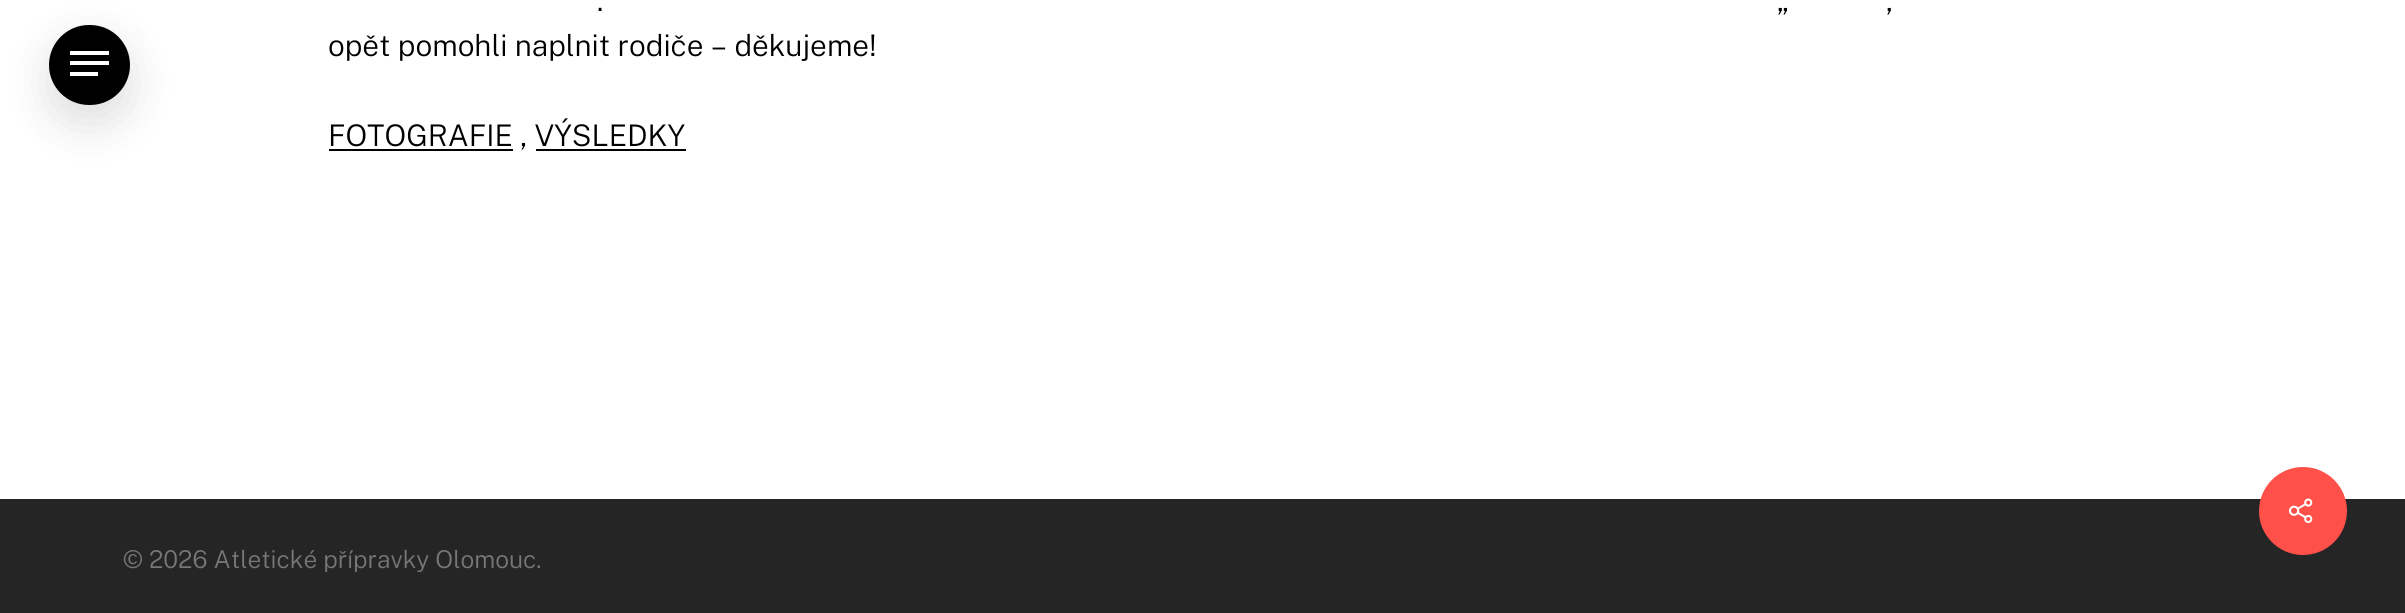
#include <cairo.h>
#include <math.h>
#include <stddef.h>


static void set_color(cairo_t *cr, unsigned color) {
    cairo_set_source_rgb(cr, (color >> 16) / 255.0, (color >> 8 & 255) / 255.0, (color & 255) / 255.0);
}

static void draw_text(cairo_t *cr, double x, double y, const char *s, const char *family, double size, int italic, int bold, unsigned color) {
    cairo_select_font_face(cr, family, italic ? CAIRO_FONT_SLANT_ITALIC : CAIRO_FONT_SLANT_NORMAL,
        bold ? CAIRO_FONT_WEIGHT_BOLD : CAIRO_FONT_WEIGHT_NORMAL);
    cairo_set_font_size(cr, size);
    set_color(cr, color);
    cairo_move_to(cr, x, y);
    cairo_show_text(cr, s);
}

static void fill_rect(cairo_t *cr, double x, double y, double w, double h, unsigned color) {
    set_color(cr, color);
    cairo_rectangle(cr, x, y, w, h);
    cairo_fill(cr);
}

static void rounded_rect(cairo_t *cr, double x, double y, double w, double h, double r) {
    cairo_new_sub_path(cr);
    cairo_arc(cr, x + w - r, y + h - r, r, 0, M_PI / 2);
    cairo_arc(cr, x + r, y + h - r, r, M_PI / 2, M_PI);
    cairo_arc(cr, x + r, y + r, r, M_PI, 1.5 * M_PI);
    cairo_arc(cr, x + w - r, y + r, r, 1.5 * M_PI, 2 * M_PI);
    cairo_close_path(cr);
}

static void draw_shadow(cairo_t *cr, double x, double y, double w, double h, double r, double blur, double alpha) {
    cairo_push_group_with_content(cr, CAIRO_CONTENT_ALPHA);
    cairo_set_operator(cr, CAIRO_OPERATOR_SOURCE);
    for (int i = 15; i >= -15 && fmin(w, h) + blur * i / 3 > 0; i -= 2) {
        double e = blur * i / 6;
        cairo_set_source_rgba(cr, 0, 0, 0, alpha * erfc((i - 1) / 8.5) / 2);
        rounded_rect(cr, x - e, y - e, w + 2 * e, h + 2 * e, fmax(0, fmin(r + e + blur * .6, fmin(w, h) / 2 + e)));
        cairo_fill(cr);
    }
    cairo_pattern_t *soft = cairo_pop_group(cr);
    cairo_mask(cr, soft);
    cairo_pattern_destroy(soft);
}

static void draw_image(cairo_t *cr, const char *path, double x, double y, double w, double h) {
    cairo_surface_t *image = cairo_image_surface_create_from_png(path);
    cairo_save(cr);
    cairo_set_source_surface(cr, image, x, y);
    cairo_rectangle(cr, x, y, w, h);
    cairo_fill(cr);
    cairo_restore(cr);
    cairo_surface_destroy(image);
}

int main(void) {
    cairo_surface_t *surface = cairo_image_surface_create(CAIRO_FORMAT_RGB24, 2405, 613);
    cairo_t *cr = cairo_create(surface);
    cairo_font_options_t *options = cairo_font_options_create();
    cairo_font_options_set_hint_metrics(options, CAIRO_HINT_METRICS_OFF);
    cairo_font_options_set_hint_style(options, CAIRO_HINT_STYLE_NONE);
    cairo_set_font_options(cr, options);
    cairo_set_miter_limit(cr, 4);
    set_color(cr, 0xFFFFFF);
    cairo_paint(cr);
    set_color(cr, 0x000000);
    draw_shadow(cr, 49, 42, 81, 81, 40.5, 22, 0.13);
    set_color(cr, 0x000000);
    rounded_rect(cr, 49, 25, 81, 80, 40);
    cairo_fill(cr);
    fill_rect(cr, 70, 51, 39, 4, 0xFFFFFF);
    fill_rect(cr, 70, 72, 28, 4, 0xFFFFFF);
    fill_rect(cr, 70, 61, 39, 4, 0xFFFFFF);
    draw_text(cr, 597, 11, ".", "Public Sans Light", 29.75, 0, 0, 0x000000);
    draw_text(cr, 1777, 11, "„", "Public Sans Light", 29.75, 0, 0, 0x000000);
    draw_text(cr, 1886, 11, ",", "Public Sans Light", 29.75, 0, 0, 0x000000);
    draw_text(cr, 328, 56, "opět pomohli naplnit rodiče – děkujeme!", "Public Sans Light", 29.75, 0, 0, 0x000000);
    fill_rect(cr, 329, 149, 184, 2, 0x000000);
    draw_text(cr, 328, 146, "FOTOGRAFIE , VÝSLEDKY", "Public Sans Light", 29.75, 0, 0, 0x000000);
    fill_rect(cr, 536, 149, 150, 2, 0x000000);
    fill_rect(cr, 0, 499, 2405, 114, 0x252525);
    set_color(cr, 0xFF5149);
    cairo_new_path(cr);
    cairo_arc(cr, 2303, 511, 44, 0, 2 * M_PI);
    cairo_fill(cr);
    draw_image(cr, "assets/img1.png", 2289, 498, 24, 25);
    draw_text(cr, 123, 568, "© 2026 Atletické přípravky Olomouc.", "Public Sans Light", 24.5, 0, 0, 0x777777);
    cairo_surface_write_to_png(surface, "output.png");
    cairo_font_options_destroy(options);
    cairo_destroy(cr);
    cairo_surface_destroy(surface);
    return 0;
}
